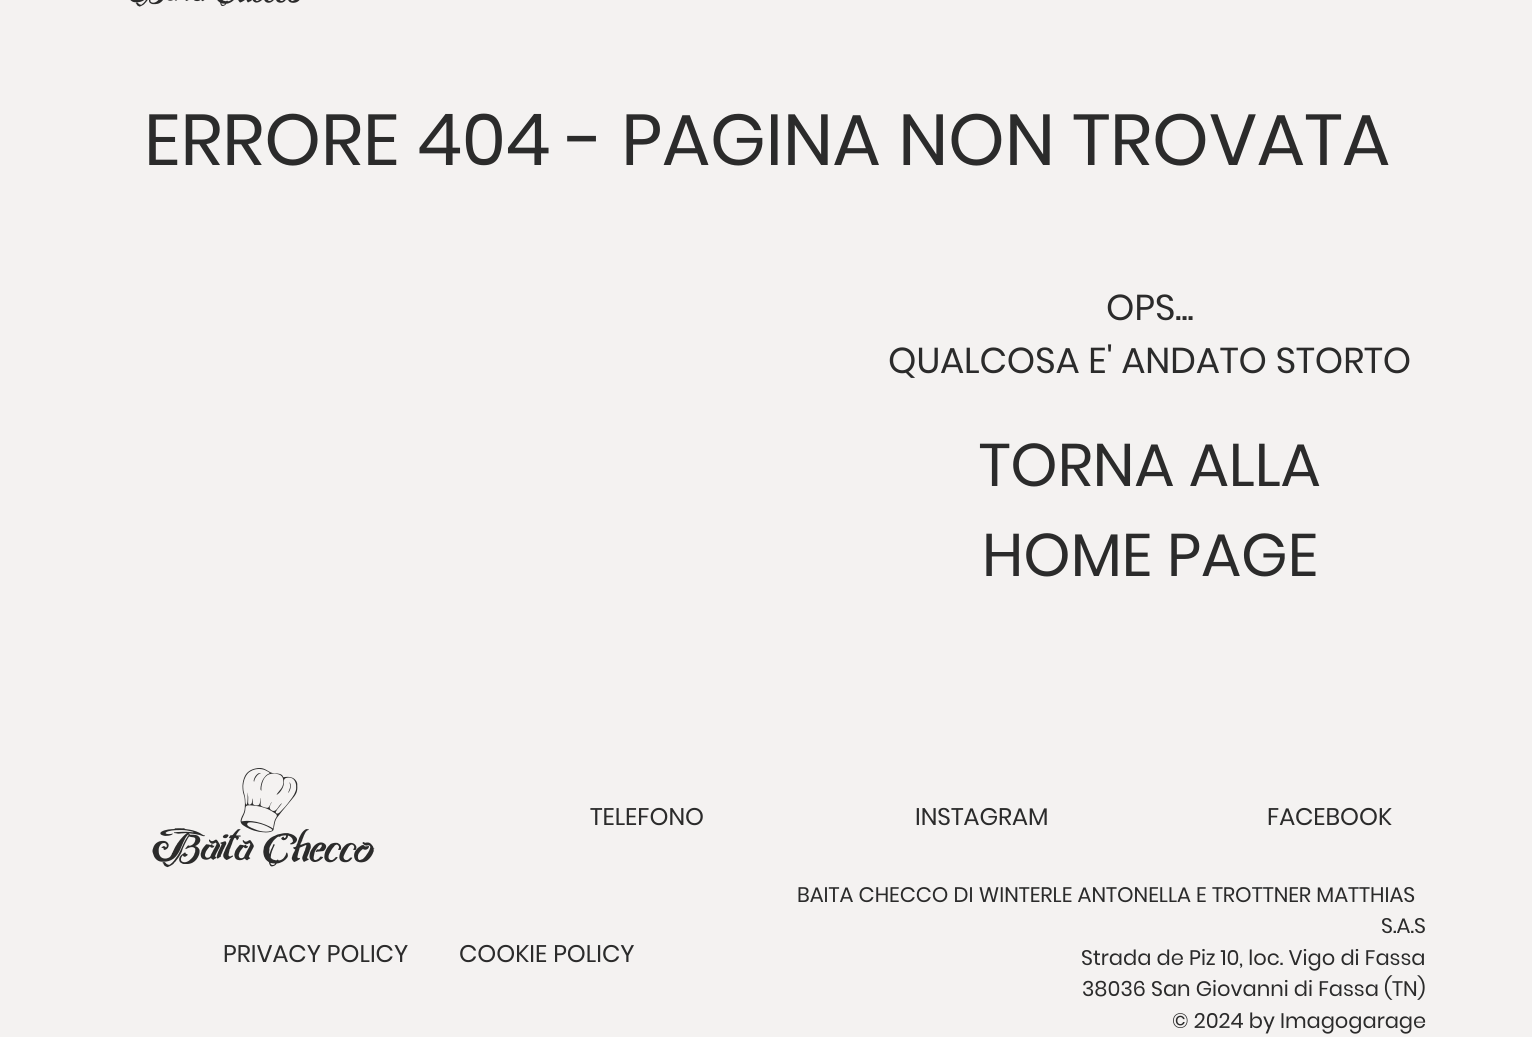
#include <cairo.h>
#include <math.h>
#include <stddef.h>


static void set_color(cairo_t *cr, unsigned color) {
    cairo_set_source_rgb(cr, (color >> 16) / 255.0, (color >> 8 & 255) / 255.0, (color & 255) / 255.0);
}

static void draw_text(cairo_t *cr, double x, double y, const char *s, const char *family, double size, int italic, int bold, unsigned color) {
    cairo_select_font_face(cr, family, italic ? CAIRO_FONT_SLANT_ITALIC : CAIRO_FONT_SLANT_NORMAL,
        bold ? CAIRO_FONT_WEIGHT_BOLD : CAIRO_FONT_WEIGHT_NORMAL);
    cairo_set_font_size(cr, size);
    set_color(cr, color);
    cairo_move_to(cr, x, y);
    cairo_show_text(cr, s);
}

static void draw_image(cairo_t *cr, const char *path, double x, double y, double w, double h) {
    cairo_surface_t *image = cairo_image_surface_create_from_png(path);
    cairo_save(cr);
    cairo_set_source_surface(cr, image, x, y);
    cairo_rectangle(cr, x, y, w, h);
    cairo_fill(cr);
    cairo_restore(cr);
    cairo_surface_destroy(image);
}

int main(void) {
    cairo_surface_t *surface = cairo_image_surface_create(CAIRO_FORMAT_RGB24, 1532, 1037);
    cairo_t *cr = cairo_create(surface);
    cairo_font_options_t *options = cairo_font_options_create();
    cairo_font_options_set_hint_metrics(options, CAIRO_HINT_METRICS_OFF);
    cairo_font_options_set_hint_style(options, CAIRO_HINT_STYLE_NONE);
    cairo_set_font_options(cr, options);
    cairo_set_miter_limit(cr, 4);
    set_color(cr, 0xF4F2F1);
    cairo_paint(cr);
    draw_image(cr, "assets/img1.png", 130, 0, 170, 7);
    draw_text(cr, 144, 165, "ERRORE 404 - PAGINA NON TROVATA", "Poppins", 71.9, 0, 0, 0x2B2B2B);
    draw_text(cr, 1106, 320, "OPS...", "Poppins", 35.9, 0, 0, 0x2B2B2B);
    draw_text(cr, 888, 373, "QUALCOSA E' ANDATO STORTO", "Poppins", 35.9, 0, 0, 0x2B2B2B);
    draw_text(cr, 979, 486, "TORNA ALLA", "Poppins", 60, 0, 0, 0x2B2B2B);
    draw_text(cr, 982, 576, "HOME PAGE", "Poppins", 60, 0, 0, 0x2B2B2B);
    draw_image(cr, "assets/img2.png", 152, 768, 223, 100);
    draw_text(cr, 590, 825, "TELEFONO", "Poppins", 24, 0, 0, 0x2B2B2B);
    draw_text(cr, 915, 825, "INSTAGRAM", "Poppins", 24, 0, 0, 0x2B2B2B);
    draw_text(cr, 1267, 825, "FACEBOOK", "Poppins", 24, 0, 0, 0x2B2B2B);
    draw_text(cr, 223, 962, "PRIVACY POLICY", "Poppins", 24, 0, 0, 0x2B2B2B);
    draw_text(cr, 459, 962, "COOKIE POLICY", "Poppins", 24, 0, 0, 0x2B2B2B);
    draw_text(cr, 797, 902, "BAITA CHECCO DI WINTERLE ANTONELLA E TROTTNER MATTHIAS", "Poppins", 21, 0, 0, 0x2B2B2B);
    draw_text(cr, 1381, 933, "S.A.S", "Poppins", 21, 0, 0, 0x2B2B2B);
    draw_text(cr, 1081, 965, "Strada de Piz 10, loc. Vigo di Fassa", "Poppins", 21, 0, 0, 0x2B2B2B);
    draw_text(cr, 1082, 996, "38036 San Giovanni di Fassa (TN)", "Poppins", 21, 0, 0, 0x2B2B2B);
    draw_text(cr, 1172, 1028, "© 2024 by Imagogarage", "Poppins", 21, 0, 0, 0x2B2B2B);
    cairo_surface_write_to_png(surface, "output.png");
    cairo_font_options_destroy(options);
    cairo_destroy(cr);
    cairo_surface_destroy(surface);
    return 0;
}
